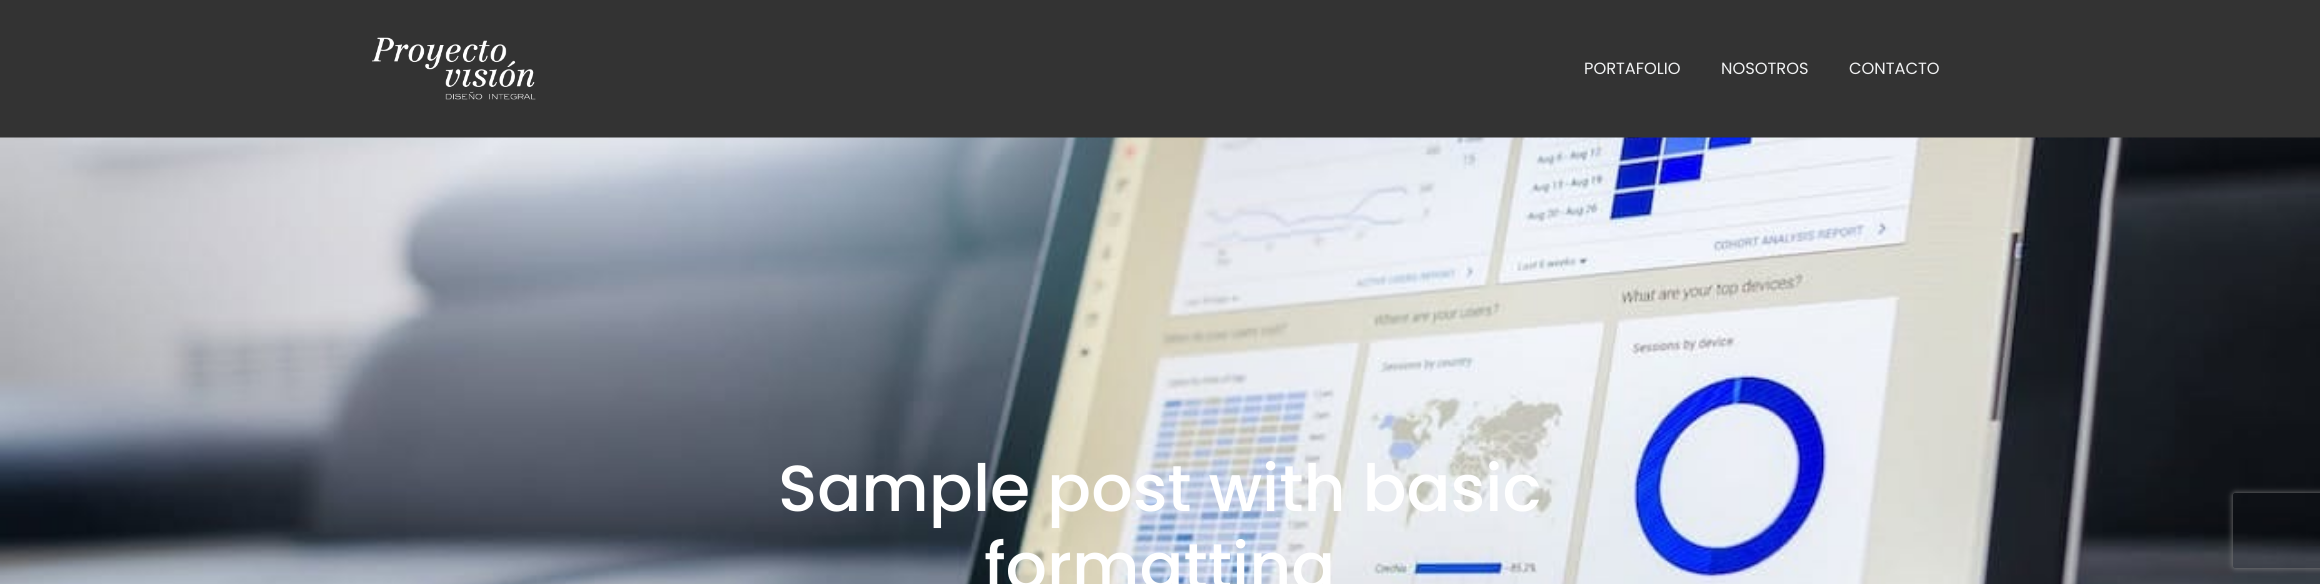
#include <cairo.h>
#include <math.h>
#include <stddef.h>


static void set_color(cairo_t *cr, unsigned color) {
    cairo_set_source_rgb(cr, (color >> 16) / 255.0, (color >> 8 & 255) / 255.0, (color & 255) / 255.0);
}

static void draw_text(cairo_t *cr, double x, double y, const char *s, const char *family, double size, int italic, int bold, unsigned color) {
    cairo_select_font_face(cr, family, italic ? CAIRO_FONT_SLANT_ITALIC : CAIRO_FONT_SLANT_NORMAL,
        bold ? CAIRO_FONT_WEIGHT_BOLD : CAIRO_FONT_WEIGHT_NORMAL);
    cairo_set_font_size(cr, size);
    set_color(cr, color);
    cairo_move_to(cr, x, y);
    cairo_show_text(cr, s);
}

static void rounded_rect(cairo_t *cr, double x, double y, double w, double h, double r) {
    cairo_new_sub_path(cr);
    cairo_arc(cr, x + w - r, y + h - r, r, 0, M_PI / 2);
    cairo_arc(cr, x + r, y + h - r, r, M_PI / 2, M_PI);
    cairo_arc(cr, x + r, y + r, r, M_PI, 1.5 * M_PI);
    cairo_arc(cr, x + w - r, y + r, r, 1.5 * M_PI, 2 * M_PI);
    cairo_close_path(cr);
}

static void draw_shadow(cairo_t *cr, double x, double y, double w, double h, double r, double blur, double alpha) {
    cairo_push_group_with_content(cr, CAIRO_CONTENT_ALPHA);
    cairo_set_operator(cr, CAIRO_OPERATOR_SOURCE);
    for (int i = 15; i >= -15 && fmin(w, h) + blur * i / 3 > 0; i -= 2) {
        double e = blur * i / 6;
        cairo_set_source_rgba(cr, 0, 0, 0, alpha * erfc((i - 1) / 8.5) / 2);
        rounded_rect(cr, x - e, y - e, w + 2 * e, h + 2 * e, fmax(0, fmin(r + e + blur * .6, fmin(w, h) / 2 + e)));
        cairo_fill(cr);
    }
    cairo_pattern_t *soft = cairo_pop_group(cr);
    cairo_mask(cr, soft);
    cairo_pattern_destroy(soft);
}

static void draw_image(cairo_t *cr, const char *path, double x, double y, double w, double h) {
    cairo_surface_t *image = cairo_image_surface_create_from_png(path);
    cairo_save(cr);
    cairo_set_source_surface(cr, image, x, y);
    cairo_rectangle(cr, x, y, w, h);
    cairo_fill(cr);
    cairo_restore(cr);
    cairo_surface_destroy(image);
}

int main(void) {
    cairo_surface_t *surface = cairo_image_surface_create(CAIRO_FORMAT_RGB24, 2320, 584);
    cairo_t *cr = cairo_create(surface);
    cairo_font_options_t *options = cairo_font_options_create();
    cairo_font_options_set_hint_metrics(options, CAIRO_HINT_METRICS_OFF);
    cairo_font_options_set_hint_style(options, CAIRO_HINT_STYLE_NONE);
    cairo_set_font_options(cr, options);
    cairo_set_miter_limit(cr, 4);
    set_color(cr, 0x333333);
    cairo_paint(cr);
    draw_image(cr, "assets/img1.png", 372, 37, 164, 63);
    draw_text(cr, 1584, 74, "PORTAFOLIO", "Poppins", 16.25, 0, 0, 0xF0F1F2);
    draw_text(cr, 1721, 74, "NOSOTROS", "Poppins", 16.25, 0, 0, 0xF0F1F2);
    draw_text(cr, 1849, 74, "CONTACTO", "Poppins", 16.25, 0, 0, 0xF0F1F2);
    draw_image(cr, "assets/img2.png", 0, 137, 2320, 447);
    draw_text(cr, 778, 511, "Sample post with basic", "Poppins Medium", 65, 0, 0, 0xFFFFFF);
    draw_text(cr, 984, 589, "formatting", "Poppins Medium", 65, 0, 0, 0xFFFFFF);
    cairo_save(cr);
    cairo_set_fill_rule(cr, CAIRO_FILL_RULE_EVEN_ODD);
    cairo_new_path(cr);
    cairo_move_to(cr, 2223, 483);
    cairo_line_to(cr, 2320, 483);
    cairo_line_to(cr, 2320, 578);
    cairo_line_to(cr, 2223, 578);
    cairo_close_path(cr);
    cairo_move_to(cr, 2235.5, 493);
    cairo_line_to(cr, 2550.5, 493);
    cairo_curve_to(cr, 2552, 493, 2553, 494, 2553, 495.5);
    cairo_line_to(cr, 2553, 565.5);
    cairo_curve_to(cr, 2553, 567, 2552, 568, 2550.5, 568);
    cairo_line_to(cr, 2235.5, 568);
    cairo_curve_to(cr, 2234, 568, 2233, 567, 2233, 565.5);
    cairo_line_to(cr, 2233, 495.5);
    cairo_curve_to(cr, 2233, 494, 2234, 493, 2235.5, 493);
    cairo_close_path(cr);
    cairo_clip(cr);
    set_color(cr, 0x808080);
    draw_shadow(cr, 2233, 493, 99, 75, 2.5, 3, 1);
    cairo_restore(cr);
    cairo_surface_write_to_png(surface, "output.png");
    cairo_font_options_destroy(options);
    cairo_destroy(cr);
    cairo_surface_destroy(surface);
    return 0;
}
